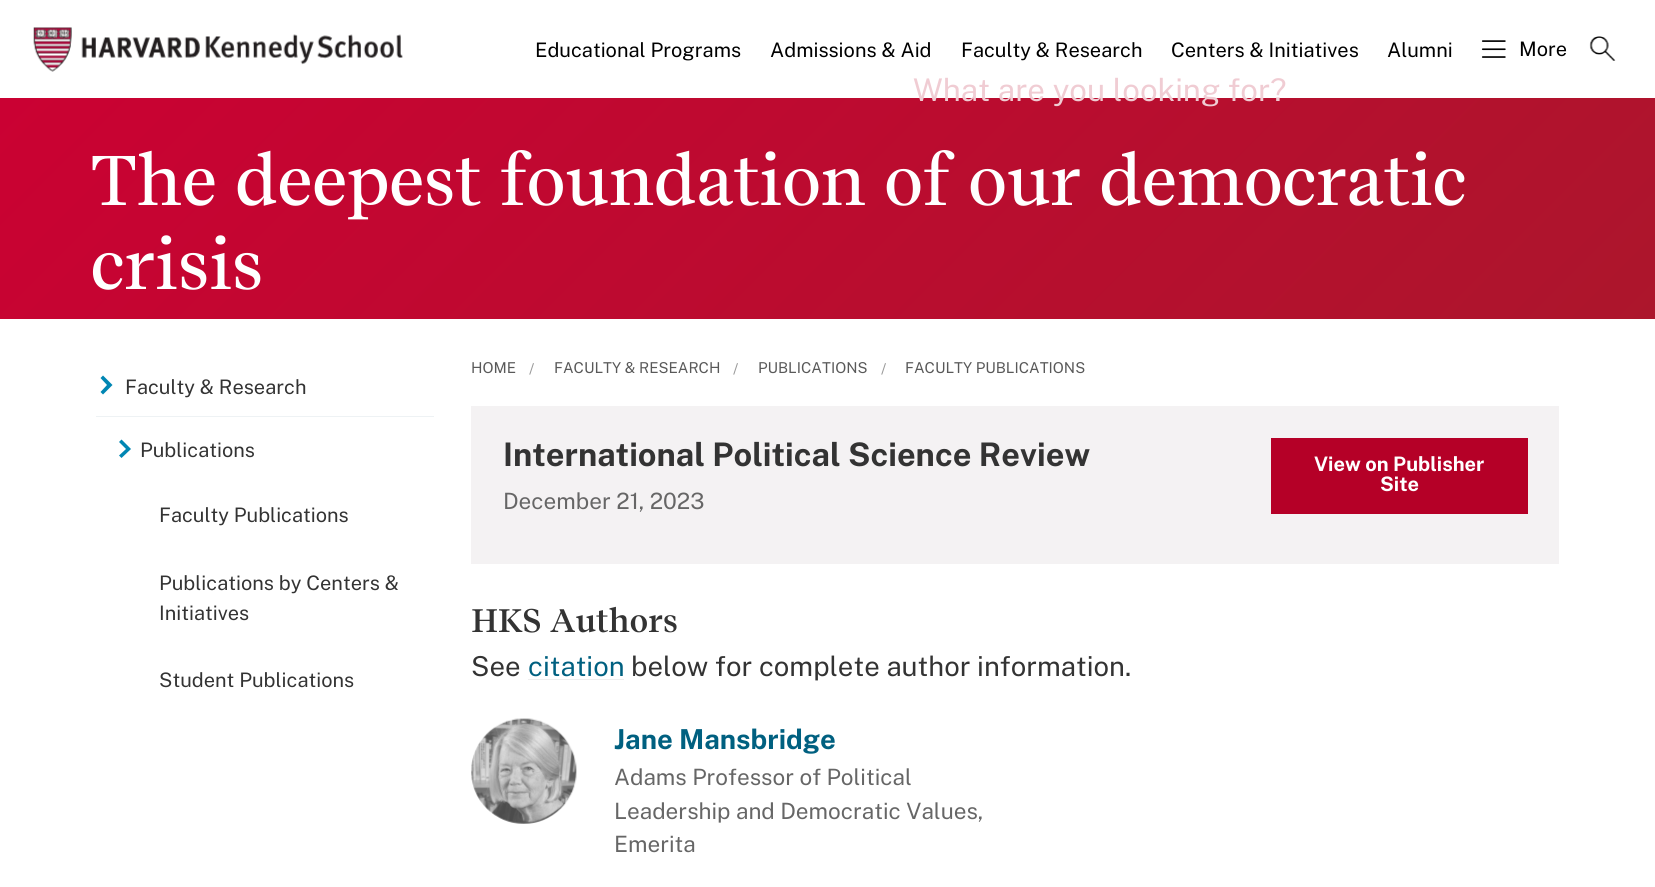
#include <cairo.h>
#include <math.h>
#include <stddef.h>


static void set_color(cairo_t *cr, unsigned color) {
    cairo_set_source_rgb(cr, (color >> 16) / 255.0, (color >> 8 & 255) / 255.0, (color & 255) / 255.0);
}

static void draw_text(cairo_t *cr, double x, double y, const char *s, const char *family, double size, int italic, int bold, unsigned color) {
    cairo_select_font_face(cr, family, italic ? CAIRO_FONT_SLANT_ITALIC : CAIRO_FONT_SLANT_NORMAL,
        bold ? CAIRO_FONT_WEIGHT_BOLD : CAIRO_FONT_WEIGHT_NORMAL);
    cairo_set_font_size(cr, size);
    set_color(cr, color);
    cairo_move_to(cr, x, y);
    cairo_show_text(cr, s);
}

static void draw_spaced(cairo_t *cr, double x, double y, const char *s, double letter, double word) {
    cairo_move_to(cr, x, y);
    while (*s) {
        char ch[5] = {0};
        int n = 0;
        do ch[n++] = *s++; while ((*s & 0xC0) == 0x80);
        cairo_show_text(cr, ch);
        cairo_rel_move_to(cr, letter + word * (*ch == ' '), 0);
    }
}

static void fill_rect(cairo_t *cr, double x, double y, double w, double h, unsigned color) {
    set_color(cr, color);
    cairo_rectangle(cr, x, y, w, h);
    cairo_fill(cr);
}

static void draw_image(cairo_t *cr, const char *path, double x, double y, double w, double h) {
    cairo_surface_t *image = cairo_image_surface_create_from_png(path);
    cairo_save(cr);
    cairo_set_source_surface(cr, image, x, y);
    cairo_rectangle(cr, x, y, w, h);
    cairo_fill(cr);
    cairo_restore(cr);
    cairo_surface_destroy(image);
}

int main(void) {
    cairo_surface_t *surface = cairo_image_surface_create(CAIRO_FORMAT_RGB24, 1655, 887);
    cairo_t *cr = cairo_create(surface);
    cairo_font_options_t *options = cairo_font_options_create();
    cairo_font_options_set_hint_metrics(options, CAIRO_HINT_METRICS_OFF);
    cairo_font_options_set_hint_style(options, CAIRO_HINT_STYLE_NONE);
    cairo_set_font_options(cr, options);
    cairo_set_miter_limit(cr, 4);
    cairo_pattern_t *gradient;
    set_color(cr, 0xFFFFFF);
    cairo_paint(cr);
    gradient = cairo_pattern_create_linear(334, -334, 1321, 653);
    cairo_pattern_add_color_stop_rgba(gradient, 0, 0.8, 0, 0.2, 1);
    cairo_pattern_add_color_stop_rgba(gradient, 1, 0.675, 0.086, 0.173, 1);
    cairo_set_source(cr, gradient);
    cairo_pattern_destroy(gradient);
    cairo_rectangle(cr, 0, 98, 1655, 221);
    cairo_fill(cr);
    draw_image(cr, "assets/img1.png", 33, 27, 370, 45);
    draw_text(cr, 535, 57, "Educational Programs", "Public Sans Thin", 20, 0, 0, 0x000000);
    draw_text(cr, 770, 57, "Admissions & Aid", "Public Sans Thin", 20, 0, 0, 0x000000);
    draw_text(cr, 961, 57, "Faculty & Research", "Public Sans Thin", 20, 0, 0, 0x000000);
    draw_text(cr, 1171, 57, "Centers & Initiatives", "Public Sans Thin", 20, 0, 0, 0x000000);
    draw_text(cr, 1387, 57, "Alumni", "Public Sans Thin", 20, 0, 0, 0x000000);
    draw_image(cr, "assets/img2.png", 1481, 40, 25, 18);
    draw_text(cr, 1519, 56, "More", "Public Sans Thin", 20, 0, 0, 0x000000);
    draw_image(cr, "assets/img3.png", 1589, 36, 27, 25);
    draw_text(cr, 913, 101, "What are you looking for?", "Public Sans Thin", 31.25, 0, 0, 0xF0CCD3);
    cairo_select_font_face(cr, "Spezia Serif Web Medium", CAIRO_FONT_SLANT_NORMAL, CAIRO_FONT_WEIGHT_NORMAL);
    cairo_set_font_size(cr, 70);
    set_color(cr, 0xFFFFFF);
    draw_spaced(cr, 90, 205, "The deepest foundation of our democratic", -1.25, 0);
    draw_spaced(cr, 90, 289, "crisis", -1.25, 0);
    fill_rect(cr, 96, 416, 338, 1, 0xEEF2F4);
    set_color(cr, 0x0086B3);
    cairo_new_path(cr);
    cairo_move_to(cr, 112.5, 385);
    cairo_line_to(cr, 103, 375.5);
    cairo_line_to(cr, 100.5, 378);
    cairo_line_to(cr, 107, 385);
    cairo_line_to(cr, 100.5, 392);
    cairo_line_to(cr, 103, 394.5);
    cairo_close_path(cr);
    cairo_fill(cr);
    draw_text(cr, 125, 394, "Faculty & Research", "Public Sans Thin", 20, 0, 0, 0x333333);
    set_color(cr, 0x0086B3);
    cairo_new_path(cr);
    cairo_move_to(cr, 131, 449);
    cairo_line_to(cr, 121.5, 439.5);
    cairo_line_to(cr, 119, 442);
    cairo_line_to(cr, 126, 449);
    cairo_line_to(cr, 119, 455.5);
    cairo_line_to(cr, 121.5, 458);
    cairo_close_path(cr);
    cairo_fill(cr);
    draw_text(cr, 140, 457, "Publications", "Public Sans Thin", 20, 0, 0, 0x333333);
    draw_text(cr, 159, 522, "Faculty Publications", "Public Sans Thin", 20, 0, 0, 0x333333);
    draw_text(cr, 159, 590, "Publications by Centers &", "Public Sans Thin", 20, 0, 0, 0x333333);
    draw_text(cr, 159, 620, "Initiatives", "Public Sans Thin", 20, 0, 0, 0x333333);
    draw_text(cr, 159, 687, "Student Publications", "Public Sans Thin", 20, 0, 0, 0x333333);
    draw_text(cr, 471, 373, "HOME", "Public Sans Thin", 15, 0, 0, 0x595959);
    draw_text(cr, 529, 374, "/", "Public Sans Thin", 15, 0, 0, 0x999999);
    draw_text(cr, 554, 373, "FACULTY & RESEARCH", "Public Sans Thin", 15, 0, 0, 0x595959);
    draw_text(cr, 733, 374, "/", "Public Sans Thin", 15, 0, 0, 0x999999);
    draw_text(cr, 758, 373, "PUBLICATIONS", "Public Sans Thin", 15, 0, 0, 0x595959);
    draw_text(cr, 881, 374, "/", "Public Sans Thin", 15, 0, 0, 0x999999);
    draw_text(cr, 905, 373, "FACULTY PUBLICATIONS", "Public Sans Thin", 15, 0, 0, 0x595959);
    fill_rect(cr, 471, 406, 1088, 158, 0xF4F2F3);
    draw_text(cr, 503, 466, "International Political Science Review", "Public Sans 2 Thin", 32.5, 0, 0, 0x333333);
    draw_text(cr, 503, 509, "December 21, 2023", "Public Sans Thin", 22.5, 0, 0, 0x666666);
    fill_rect(cr, 1271, 438, 257, 76, 0xB50027);
    draw_text(cr, 1314, 471, "View on Publisher", "Public Sans 2 Thin", 20, 0, 0, 0xFFFFFF);
    draw_text(cr, 1380, 491, "Site", "Public Sans 2 Thin", 20, 0, 0, 0xFFFFFF);
    cairo_select_font_face(cr, "Spezia Serif Web SemiBold", CAIRO_FONT_SLANT_NORMAL, CAIRO_FONT_WEIGHT_NORMAL);
    cairo_set_font_size(cr, 32.5);
    set_color(cr, 0x333333);
    draw_spaced(cr, 471, 632, "HKS Authors", -0.4, 0);
    draw_text(cr, 471, 676, "See", "Public Sans Thin", 27.5, 0, 0, 0x333333);
    draw_text(cr, 528, 676, "citation", "Public Sans Thin", 27.5, 0, 0, 0x006080);
    fill_rect(cr, 528, 679, 96, 1, 0xEEEEEE);
    draw_text(cr, 631, 676, "below for complete author information.", "Public Sans Thin", 27.5, 0, 0, 0x333333);
    draw_image(cr, "assets/img4.png", 471, 718, 106, 106);
    draw_text(cr, 614, 749, "Jane Mansbridge", "Public Sans 2 Thin", 27.5, 0, 0, 0x006080);
    draw_text(cr, 614, 785, "Adams Professor of Political", "Public Sans Thin", 22.5, 0, 0, 0x666666);
    draw_text(cr, 614, 819, "Leadership and Democratic Values,", "Public Sans Thin", 22.5, 0, 0, 0x666666);
    draw_text(cr, 614, 852, "Emerita", "Public Sans Thin", 22.5, 0, 0, 0x666666);
    cairo_surface_write_to_png(surface, "output.png");
    cairo_font_options_destroy(options);
    cairo_destroy(cr);
    cairo_surface_destroy(surface);
    return 0;
}
